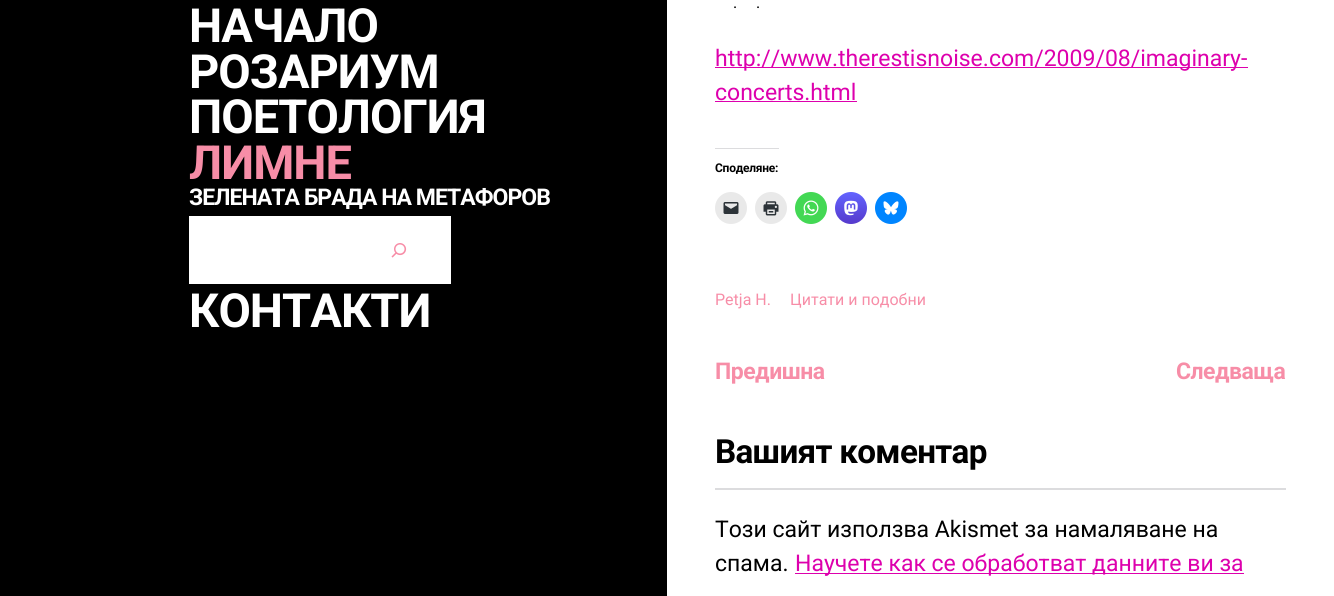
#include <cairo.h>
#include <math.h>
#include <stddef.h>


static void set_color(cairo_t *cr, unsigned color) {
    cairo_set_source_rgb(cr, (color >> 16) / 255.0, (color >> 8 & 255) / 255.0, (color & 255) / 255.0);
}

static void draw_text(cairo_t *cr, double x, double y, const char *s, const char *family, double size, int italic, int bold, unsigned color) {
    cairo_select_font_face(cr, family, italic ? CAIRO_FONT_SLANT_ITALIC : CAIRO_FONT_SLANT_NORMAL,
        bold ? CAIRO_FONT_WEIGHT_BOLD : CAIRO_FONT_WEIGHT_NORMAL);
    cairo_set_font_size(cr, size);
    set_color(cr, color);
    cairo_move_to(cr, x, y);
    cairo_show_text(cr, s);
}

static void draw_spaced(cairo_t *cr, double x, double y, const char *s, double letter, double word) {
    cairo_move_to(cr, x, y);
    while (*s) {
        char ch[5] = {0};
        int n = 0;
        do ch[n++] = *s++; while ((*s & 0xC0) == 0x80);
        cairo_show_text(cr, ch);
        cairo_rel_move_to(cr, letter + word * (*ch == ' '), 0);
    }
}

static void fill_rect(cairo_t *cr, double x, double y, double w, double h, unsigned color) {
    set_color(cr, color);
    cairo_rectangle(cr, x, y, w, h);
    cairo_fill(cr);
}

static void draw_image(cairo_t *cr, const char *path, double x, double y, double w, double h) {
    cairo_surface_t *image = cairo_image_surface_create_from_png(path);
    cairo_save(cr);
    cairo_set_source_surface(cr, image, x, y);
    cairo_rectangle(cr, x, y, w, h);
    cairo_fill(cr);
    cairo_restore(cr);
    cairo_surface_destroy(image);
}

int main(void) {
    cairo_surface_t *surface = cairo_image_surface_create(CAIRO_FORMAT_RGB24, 1334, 596);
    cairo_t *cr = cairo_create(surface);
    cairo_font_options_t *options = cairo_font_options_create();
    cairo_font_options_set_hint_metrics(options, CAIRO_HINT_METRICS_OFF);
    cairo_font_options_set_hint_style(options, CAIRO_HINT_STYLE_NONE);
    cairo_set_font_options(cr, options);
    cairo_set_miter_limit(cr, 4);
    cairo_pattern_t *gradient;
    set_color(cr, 0xFFFFFF);
    cairo_paint(cr);
    fill_rect(cr, 0, 0, 667, 596, 0x000000);
    cairo_select_font_face(cr, "Roboto", CAIRO_FONT_SLANT_NORMAL, CAIRO_FONT_WEIGHT_BOLD);
    cairo_set_font_size(cr, 47);
    set_color(cr, 0xFFFFFF);
    draw_spaced(cr, 189, 42, "НАЧАЛО", -0.95, 0);
    draw_spaced(cr, 189, 88, "РОЗАРИУМ", -0.95, 0);
    draw_spaced(cr, 189, 133, "ПОЕТОЛОГИЯ", -0.95, 0);
    set_color(cr, 0xF78DA7);
    draw_spaced(cr, 189, 179, "ЛИМНЕ", -0.95, 0);
    cairo_set_font_size(cr, 23);
    set_color(cr, 0xFFFFFF);
    draw_spaced(cr, 189, 205, "ЗЕЛЕНАТА БРАДА НА МЕТАФОРОВ", -0.95, 0);
    fill_rect(cr, 189, 216, 262, 68, 0xFFFFFF);
    draw_image(cr, "assets/img1.png", 391, 243, 16, 15);
    cairo_set_font_size(cr, 47);
    draw_spaced(cr, 189, 327, "КОНТАКТИ", -0.95, 0);
    draw_text(cr, 733, 8, ".", "Roboto", 16, 0, 0, 0x000000);
    draw_text(cr, 756, 8, ".", "Roboto", 16, 0, 0, 0x000000);
    fill_rect(cr, 715, 67, 533, 1, 0xDD00AD);
    draw_text(cr, 715, 66, "http://www.therestisnoise.com/2009/08/imaginary-", "Roboto", 23, 0, 0, 0xDD00AD);
    draw_text(cr, 715, 100, "concerts.html", "Roboto", 23, 0, 0, 0xDD00AD);
    fill_rect(cr, 715, 101, 142, 1, 0xDD00AD);
    fill_rect(cr, 715, 148, 64, 1, 0xDCDCDE);
    cairo_select_font_face(cr, "Roboto", CAIRO_FONT_SLANT_NORMAL, CAIRO_FONT_WEIGHT_BOLD);
    cairo_set_font_size(cr, 12);
    set_color(cr, 0x000000);
    draw_spaced(cr, 715, 172, "Споделяне:", -0.25, 0);
    set_color(cr, 0xE9E9E9);
    cairo_new_path(cr);
    cairo_arc(cr, 731, 208, 16, 0, 2 * M_PI);
    cairo_fill(cr);
    draw_image(cr, "assets/img2.png", 723, 202, 16, 12);
    cairo_arc(cr, 771, 208, 16, 0, 2 * M_PI);
    cairo_fill(cr);
    draw_image(cr, "assets/img3.png", 763, 201, 16, 15);
    set_color(cr, 0x43D854);
    cairo_arc(cr, 811, 208, 16, 0, 2 * M_PI);
    cairo_fill(cr);
    draw_image(cr, "assets/img4.png", 803, 200, 16, 16);
    gradient = cairo_pattern_create_linear(851, 224, 851, 192);
    cairo_pattern_add_color_stop_rgba(gradient, 0, 0.337, 0.227, 0.8, 1);
    cairo_pattern_add_color_stop_rgba(gradient, 1, 0.388, 0.392, 1, 1);
    cairo_set_source(cr, gradient);
    cairo_pattern_destroy(gradient);
    cairo_arc(cr, 851, 208, 16, 0, 2 * M_PI);
    cairo_fill(cr);
    draw_image(cr, "assets/img5.png", 844, 200, 14, 16);
    set_color(cr, 0x0085FF);
    cairo_arc(cr, 891, 208, 16, 0, 2 * M_PI);
    cairo_fill(cr);
    draw_image(cr, "assets/img6.png", 883, 201, 16, 14);
    draw_text(cr, 715, 305, "Petja H.", "Roboto", 16, 0, 0, 0xF78DA7);
    draw_text(cr, 790, 305, "Цитати и подобни", "Roboto", 16, 0, 0, 0xF78DA7);
    cairo_select_font_face(cr, "Roboto", CAIRO_FONT_SLANT_NORMAL, CAIRO_FONT_WEIGHT_BOLD);
    cairo_set_font_size(cr, 23);
    draw_spaced(cr, 715, 379, "Предишна", -0.5, 0);
    draw_spaced(cr, 1176, 379, "Следваща", -0.5, 0);
    cairo_set_font_size(cr, 33.25);
    set_color(cr, 0x000000);
    draw_spaced(cr, 715, 463, "Вашият коментар", -0.7, 0);
    fill_rect(cr, 715, 488, 571, 2, 0xDCDCDE);
    draw_text(cr, 715, 537, "Този сайт използва Akismet за намаляване на", "Roboto", 23, 0, 0, 0x000000);
    draw_text(cr, 715, 571, "спама.", "Roboto", 23, 0, 0, 0x000000);
    fill_rect(cr, 795, 573, 449, 1, 0xDD00AD);
    draw_text(cr, 795, 571, "Научете как се обработват данните ви за", "Roboto", 23, 0, 0, 0xDD00AD);
    cairo_surface_write_to_png(surface, "output.png");
    cairo_font_options_destroy(options);
    cairo_destroy(cr);
    cairo_surface_destroy(surface);
    return 0;
}
